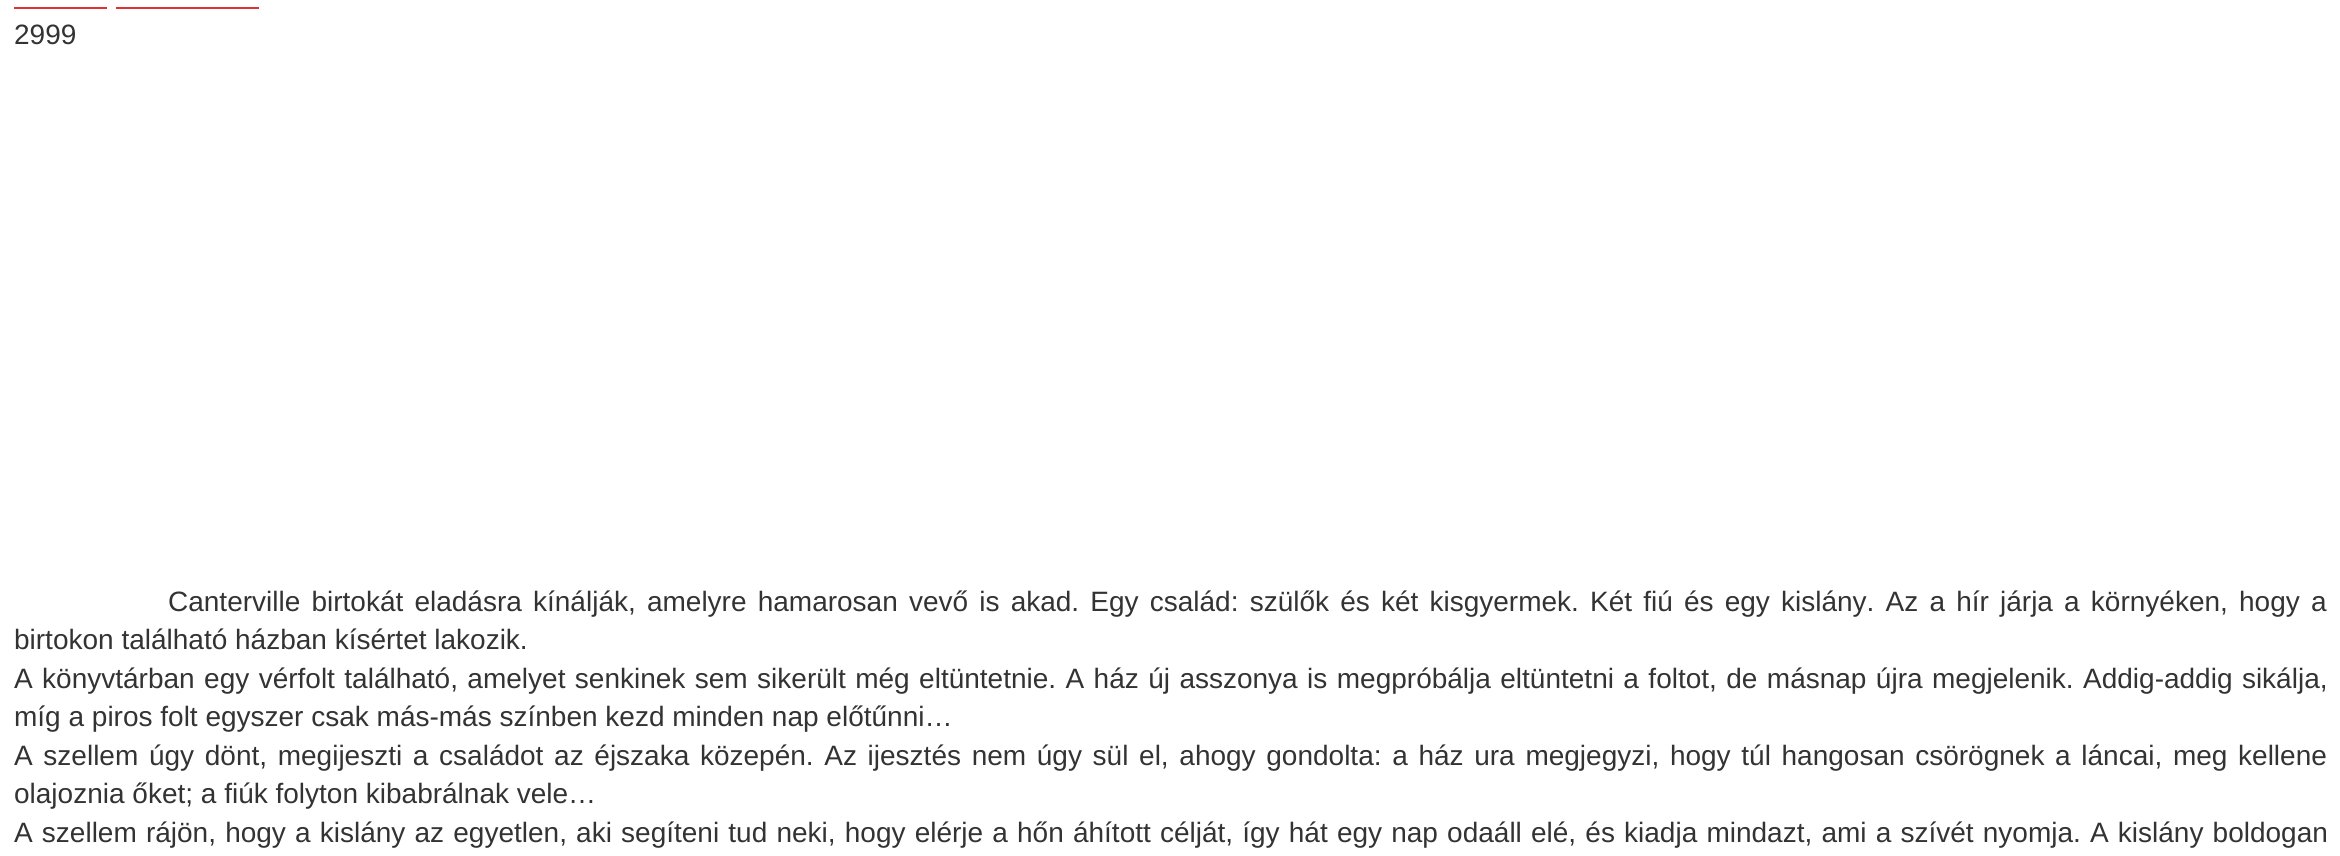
#include <cairo.h>
#include <math.h>
#include <stddef.h>


static void set_color(cairo_t *cr, unsigned color) {
    cairo_set_source_rgb(cr, (color >> 16) / 255.0, (color >> 8 & 255) / 255.0, (color & 255) / 255.0);
}

static void draw_text(cairo_t *cr, double x, double y, const char *s, const char *family, double size, int italic, int bold, unsigned color) {
    cairo_select_font_face(cr, family, italic ? CAIRO_FONT_SLANT_ITALIC : CAIRO_FONT_SLANT_NORMAL,
        bold ? CAIRO_FONT_WEIGHT_BOLD : CAIRO_FONT_WEIGHT_NORMAL);
    cairo_set_font_size(cr, size);
    set_color(cr, color);
    cairo_move_to(cr, x, y);
    cairo_show_text(cr, s);
}

static void draw_spaced(cairo_t *cr, double x, double y, const char *s, double letter, double word) {
    cairo_move_to(cr, x, y);
    while (*s) {
        char ch[5] = {0};
        int n = 0;
        do ch[n++] = *s++; while ((*s & 0xC0) == 0x80);
        cairo_show_text(cr, ch);
        cairo_rel_move_to(cr, letter + word * (*ch == ' '), 0);
    }
}

static void fill_rect(cairo_t *cr, double x, double y, double w, double h, unsigned color) {
    set_color(cr, color);
    cairo_rectangle(cr, x, y, w, h);
    cairo_fill(cr);
}

int main(void) {
    cairo_surface_t *surface = cairo_image_surface_create(CAIRO_FORMAT_RGB24, 2340, 856);
    cairo_t *cr = cairo_create(surface);
    cairo_font_options_t *options = cairo_font_options_create();
    cairo_font_options_set_hint_metrics(options, CAIRO_HINT_METRICS_OFF);
    cairo_font_options_set_hint_style(options, CAIRO_HINT_STYLE_NONE);
    cairo_set_font_options(cr, options);
    cairo_set_miter_limit(cr, 4);
    set_color(cr, 0xFFFFFF);
    cairo_paint(cr);
    fill_rect(cr, 14, 7, 93, 2, 0xDD3333);
    fill_rect(cr, 116, 7, 143, 2, 0xDD3333);
    draw_text(cr, 14, 44, "2999", "Liberation Sans", 28, 0, 0, 0x333333);
    draw_spaced(cr, 168, 611, "Canterville birtokát eladásra kínálják, amelyre hamarosan vevő is akad. Egy család: szülők és két kisgyermek. Két fiú és egy kislány. Az a hír járja a környéken, hogy a", 0, 3.4);
    draw_text(cr, 14, 649, "birtokon található házban kísértet lakozik.", "Liberation Sans", 28, 0, 0, 0x333333);
    draw_spaced(cr, 14, 688, "A könyvtárban egy vérfolt található, amelyet senkinek sem sikerült még eltüntetnie. A ház új asszonya is megpróbálja eltüntetni a foltot, de másnap újra megjelenik. Addig-addig sikálja,", 0, 1.65);
    draw_text(cr, 14, 726, "míg a piros folt egyszer csak más-más színben kezd minden nap előtűnni…", "Liberation Sans", 28, 0, 0, 0x333333);
    draw_spaced(cr, 14, 765, "A szellem úgy dönt, megijeszti a családot az éjszaka közepén. Az ijesztés nem úgy sül el, ahogy gondolta: a ház ura megjegyzi, hogy túl hangosan csörögnek a láncai, meg kellene", 0, 2.9);
    draw_text(cr, 14, 803, "olajoznia őket; a fiúk folyton kibabrálnak vele…", "Liberation Sans", 28, 0, 0, 0x333333);
    draw_spaced(cr, 14, 842, "A szellem rájön, hogy a kislány az egyetlen, aki segíteni tud neki, hogy elérje a hőn áhított célját, így hát egy nap odaáll elé, és kiadja mindazt, ami a szívét nyomja. A kislány boldogan", 0, 1.4);
    cairo_surface_write_to_png(surface, "output.png");
    cairo_font_options_destroy(options);
    cairo_destroy(cr);
    cairo_surface_destroy(surface);
    return 0;
}
